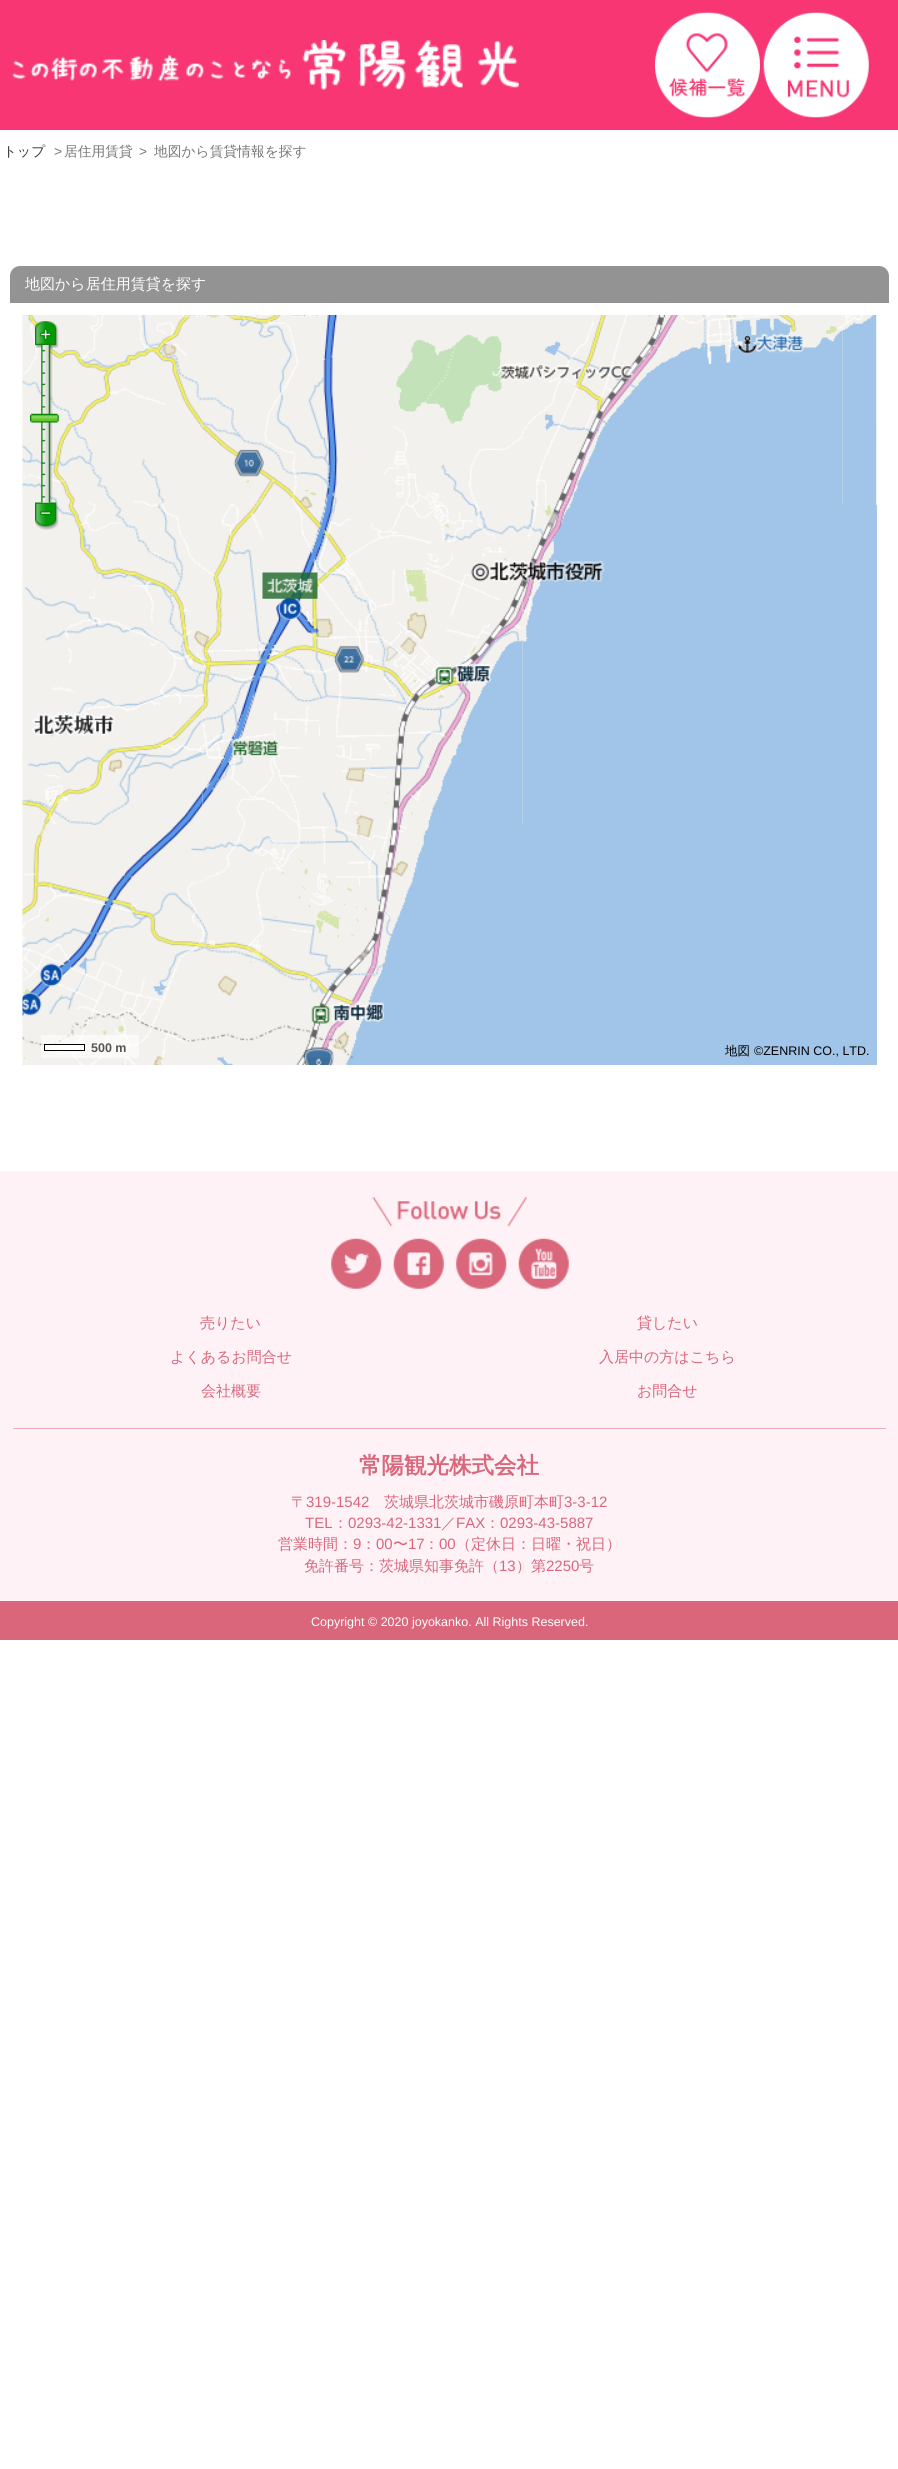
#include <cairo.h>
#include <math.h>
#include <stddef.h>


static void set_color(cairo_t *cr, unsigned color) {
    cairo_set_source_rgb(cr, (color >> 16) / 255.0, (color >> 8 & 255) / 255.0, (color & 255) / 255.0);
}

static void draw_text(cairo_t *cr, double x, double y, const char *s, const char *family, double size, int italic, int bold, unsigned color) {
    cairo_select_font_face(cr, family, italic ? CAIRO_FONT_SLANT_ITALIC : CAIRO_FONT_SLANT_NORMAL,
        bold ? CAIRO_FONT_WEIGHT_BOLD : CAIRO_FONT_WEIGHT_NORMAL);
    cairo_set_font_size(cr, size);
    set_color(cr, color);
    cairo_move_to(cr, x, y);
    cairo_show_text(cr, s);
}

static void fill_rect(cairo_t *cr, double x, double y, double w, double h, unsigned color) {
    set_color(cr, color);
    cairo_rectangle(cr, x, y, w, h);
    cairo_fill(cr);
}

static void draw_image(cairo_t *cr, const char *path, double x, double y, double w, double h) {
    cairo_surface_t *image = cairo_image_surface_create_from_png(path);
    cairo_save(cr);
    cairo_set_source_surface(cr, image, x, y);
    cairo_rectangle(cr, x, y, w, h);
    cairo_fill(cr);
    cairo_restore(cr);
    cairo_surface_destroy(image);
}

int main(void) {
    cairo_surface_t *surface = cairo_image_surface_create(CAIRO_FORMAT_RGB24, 898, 2469);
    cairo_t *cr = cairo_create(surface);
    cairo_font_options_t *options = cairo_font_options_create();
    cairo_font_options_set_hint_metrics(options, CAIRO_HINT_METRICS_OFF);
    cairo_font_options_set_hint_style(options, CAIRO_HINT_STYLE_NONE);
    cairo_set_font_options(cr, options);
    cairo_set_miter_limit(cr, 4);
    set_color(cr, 0xFFFFFF);
    cairo_paint(cr);
    fill_rect(cr, 0, 0, 898, 130, 0xF73673);
    draw_image(cr, "assets/img1.png", 12, 40, 507, 50);
    draw_image(cr, "assets/img2.png", 655, 12, 105, 106);
    draw_image(cr, "assets/img3.png", 763, 12, 106, 106);
    draw_text(cr, 3, 156, "トップ", "WenQuanYi Zen Hei Medium", 13.75, 0, 0, 0x333333);
    draw_text(cr, 54, 156, ">", "Liberation Sans", 13.75, 0, 0, 0x777777);
    draw_text(cr, 64, 156, "居住用賃貸", "WenQuanYi Zen Hei Medium", 13.75, 0, 0, 0x777777);
    draw_text(cr, 139, 156, ">", "Liberation Sans", 13.75, 0, 0, 0x777777);
    draw_text(cr, 154, 156, "地図から賃貸情報を探す", "WenQuanYi Zen Hei Medium", 13.75, 0, 0, 0x777777);
    set_color(cr, 0x939393);
    cairo_new_path(cr);
    cairo_move_to(cr, 20, 266);
    cairo_line_to(cr, 879, 266);
    cairo_curve_to(cr, 884.5, 266, 889, 270.5, 889, 276);
    cairo_line_to(cr, 889, 303);
    cairo_line_to(cr, 10, 303);
    cairo_line_to(cr, 10, 276);
    cairo_curve_to(cr, 10, 270.5, 14.5, 266, 20, 266);
    cairo_close_path(cr);
    cairo_fill(cr);
    draw_text(cr, 25, 289, "地図から居住用賃貸を探す", "WenQuanYi Zen Hei Medium", 15, 0, 0, 0xFFFFFF);
    draw_image(cr, "assets/img4.png", 22, 315, 855, 750);
    draw_image(cr, "assets/img5.png", 22, 315, 181, 190);
    draw_image(cr, "assets/img6.png", 202, 315, 321, 190);
    draw_image(cr, "assets/img7.png", 522, 315, 321, 190);
    draw_image(cr, "assets/img8.png", 842, 315, 35, 190);
    draw_image(cr, "assets/img9.png", 22, 505, 181, 320);
    draw_image(cr, "assets/img10.png", 202, 505, 321, 320);
    draw_image(cr, "assets/img11.png", 522, 505, 320, 320);
    fill_rect(cr, 842, 505, 35, 320, 0xA1C5E8);
    draw_image(cr, "assets/img12.png", 22, 825, 181, 240);
    draw_image(cr, "assets/img13.png", 202, 825, 320, 240);
    fill_rect(cr, 522, 825, 355, 240, 0xA1C5E8);
    draw_image(cr, "assets/img14.png", 35, 321, 24, 27);
    draw_image(cr, "assets/img17.png", 35, 502, 24, 28);
    draw_image(cr, "assets/img15.png", 41, 345, 12, 158);
    draw_image(cr, "assets/img16.png", 30, 413, 29, 10);
    cairo_set_source_rgba(cr, 1, 1, 1, 0.6);
    cairo_rectangle(cr, 41, 1035, 98, 23);
    cairo_fill(cr);
    set_color(cr, 0xFFFFFF);
    cairo_rectangle(cr, 44.5, 1044.5, 40, 6);
    cairo_fill_preserve(cr);
    set_color(cr, 0x000000);
    cairo_set_line_width(cr, 1);
    cairo_stroke(cr);
    draw_text(cr, 91, 1052, "500 m", "Liberation Sans", 12.5, 0, 1, 0x555555);
    draw_text(cr, 725, 1055, "地図", "WenQuanYi Zen Hei Medium", 12.5, 0, 0, 0x000000);
    draw_text(cr, 754, 1055, "©ZENRIN CO., LTD.", "Liberation Sans", 12.5, 0, 0, 0x000000);
    fill_rect(cr, 0, 1171, 898, 430, 0xFEF2F6);
    draw_image(cr, "assets/img18.png", 372, 1196, 156, 31);
    draw_image(cr, "assets/img19.png", 331, 1238, 51, 51);
    draw_image(cr, "assets/img20.png", 393, 1238, 51, 51);
    draw_image(cr, "assets/img21.png", 456, 1238, 51, 51);
    draw_image(cr, "assets/img22.png", 518, 1238, 51, 51);
    draw_text(cr, 200, 1328, "売りたい", "WenQuanYi Zen Hei Medium", 15, 0, 0, 0xDA667B);
    draw_text(cr, 637, 1328, "貸したい", "WenQuanYi Zen Hei Medium", 15, 0, 0, 0xDA667B);
    draw_text(cr, 170, 1362, "よくあるお問合せ", "WenQuanYi Zen Hei Medium", 15, 0, 0, 0xDA667B);
    draw_text(cr, 599, 1362, "入居中の方はこちら", "WenQuanYi Zen Hei Medium", 15, 0, 0, 0xDA667B);
    draw_text(cr, 201, 1396, "会社概要", "WenQuanYi Zen Hei Medium", 15, 0, 0, 0xDA667B);
    draw_text(cr, 637, 1396, "お問合せ", "WenQuanYi Zen Hei Medium", 15, 0, 0, 0xDA667B);
    fill_rect(cr, 13, 1428, 873, 1, 0xECACB8);
    draw_text(cr, 359, 1473, "常陽観光株式会社", "WenQuanYi Zen Hei", 22.5, 0, 1, 0xDA667B);
    draw_text(cr, 291, 1507, "〒", "WenQuanYi Zen Hei Medium", 15, 0, 0, 0xDA667B);
    draw_text(cr, 306, 1507, "319-1542", "Liberation Sans", 15, 0, 0, 0xDA667B);
    draw_text(cr, 384, 1507, "茨城県北茨城市磯原町本町", "WenQuanYi Zen Hei Medium", 15, 0, 0, 0xDA667B);
    draw_text(cr, 564, 1507, "3-3-12", "Liberation Sans", 15, 0, 0, 0xDA667B);
    draw_text(cr, 305, 1528, "TEL", "Liberation Sans", 15, 0, 0, 0xDA667B);
    draw_text(cr, 333, 1528, "：", "WenQuanYi Zen Hei Medium", 15, 0, 0, 0xDA667B);
    draw_text(cr, 348, 1528, "0293-42-1331", "Liberation Sans", 15, 0, 0, 0xDA667B);
    draw_text(cr, 441, 1528, "／", "WenQuanYi Zen Hei Medium", 15, 0, 0, 0xDA667B);
    draw_text(cr, 456, 1528, "FAX", "Liberation Sans", 15, 0, 0, 0xDA667B);
    draw_text(cr, 485, 1528, "：", "WenQuanYi Zen Hei Medium", 15, 0, 0, 0xDA667B);
    draw_text(cr, 500, 1528, "0293-43-5887", "Liberation Sans", 15, 0, 0, 0xDA667B);
    draw_text(cr, 278, 1549, "営業時間：", "WenQuanYi Zen Hei Medium", 15, 0, 0, 0xDA667B);
    draw_text(cr, 353, 1549, "9", "Liberation Sans", 15, 0, 0, 0xDA667B);
    draw_text(cr, 361, 1549, "：", "WenQuanYi Zen Hei Medium", 15, 0, 0, 0xDA667B);
    draw_text(cr, 376, 1549, "00", "Liberation Sans", 15, 0, 0, 0xDA667B);
    draw_text(cr, 393, 1549, "〜", "WenQuanYi Zen Hei Medium", 15, 0, 0, 0xDA667B);
    draw_text(cr, 408, 1549, "17", "Liberation Sans", 15, 0, 0, 0xDA667B);
    draw_text(cr, 424, 1549, "：", "WenQuanYi Zen Hei Medium", 15, 0, 0, 0xDA667B);
    draw_text(cr, 439, 1549, "00", "Liberation Sans", 15, 0, 0, 0xDA667B);
    draw_text(cr, 456, 1549, "（定休日：日曜・祝日）", "WenQuanYi Zen Hei Medium", 15, 0, 0, 0xDA667B);
    draw_text(cr, 304, 1571, "免許番号：茨城県知事免許（", "WenQuanYi Zen Hei Medium", 15, 0, 0, 0xDA667B);
    draw_text(cr, 499, 1571, "13", "Liberation Sans", 15, 0, 0, 0xDA667B);
    draw_text(cr, 516, 1571, "）第", "WenQuanYi Zen Hei Medium", 15, 0, 0, 0xDA667B);
    draw_text(cr, 546, 1571, "2250", "Liberation Sans", 15, 0, 0, 0xDA667B);
    draw_text(cr, 579, 1571, "号", "WenQuanYi Zen Hei Medium", 15, 0, 0, 0xDA667B);
    fill_rect(cr, 0, 1601, 898, 39, 0xDA667B);
    draw_text(cr, 311, 1626, "Copyright © 2020 joyokanko. All Rights Reserved.", "Liberation Sans", 12.5, 0, 0, 0xFFFFFF);
    cairo_surface_write_to_png(surface, "output.png");
    cairo_font_options_destroy(options);
    cairo_destroy(cr);
    cairo_surface_destroy(surface);
    return 0;
}
